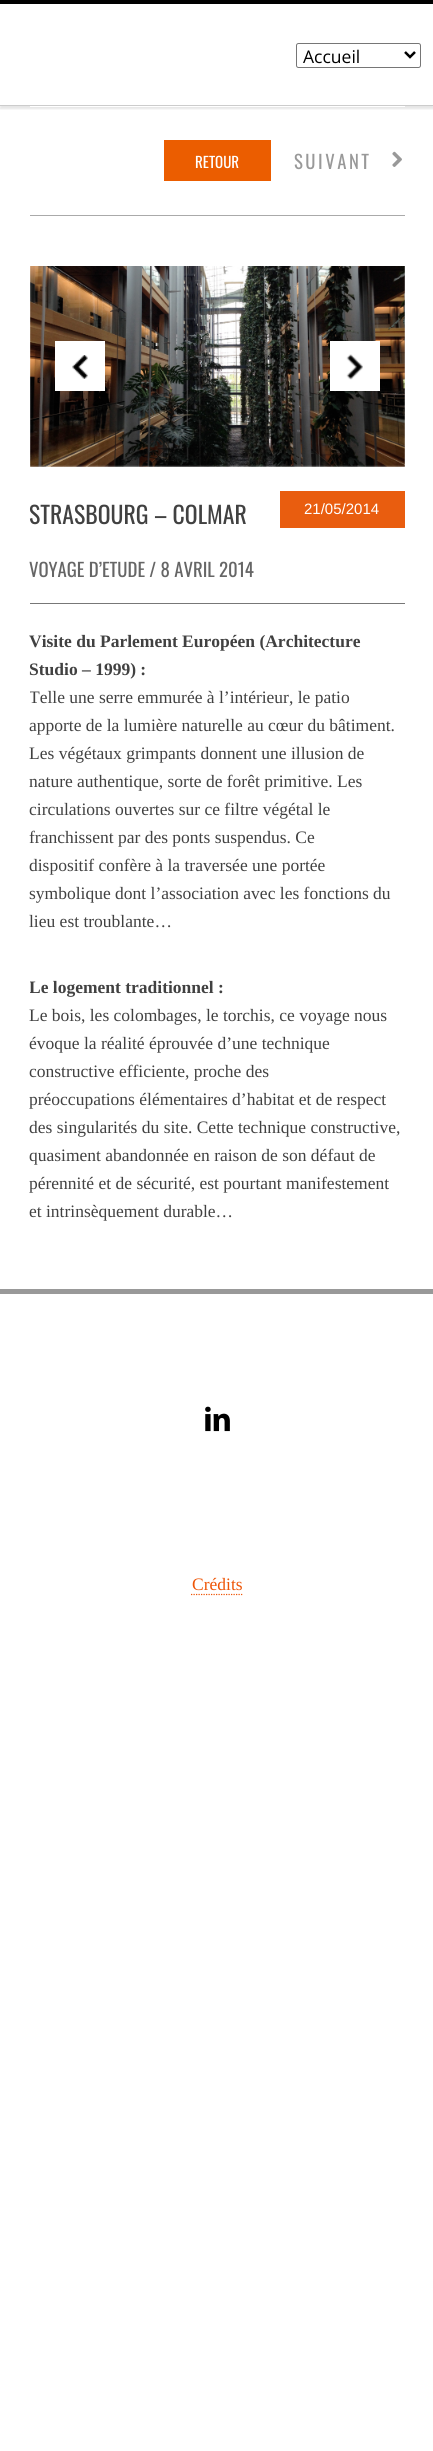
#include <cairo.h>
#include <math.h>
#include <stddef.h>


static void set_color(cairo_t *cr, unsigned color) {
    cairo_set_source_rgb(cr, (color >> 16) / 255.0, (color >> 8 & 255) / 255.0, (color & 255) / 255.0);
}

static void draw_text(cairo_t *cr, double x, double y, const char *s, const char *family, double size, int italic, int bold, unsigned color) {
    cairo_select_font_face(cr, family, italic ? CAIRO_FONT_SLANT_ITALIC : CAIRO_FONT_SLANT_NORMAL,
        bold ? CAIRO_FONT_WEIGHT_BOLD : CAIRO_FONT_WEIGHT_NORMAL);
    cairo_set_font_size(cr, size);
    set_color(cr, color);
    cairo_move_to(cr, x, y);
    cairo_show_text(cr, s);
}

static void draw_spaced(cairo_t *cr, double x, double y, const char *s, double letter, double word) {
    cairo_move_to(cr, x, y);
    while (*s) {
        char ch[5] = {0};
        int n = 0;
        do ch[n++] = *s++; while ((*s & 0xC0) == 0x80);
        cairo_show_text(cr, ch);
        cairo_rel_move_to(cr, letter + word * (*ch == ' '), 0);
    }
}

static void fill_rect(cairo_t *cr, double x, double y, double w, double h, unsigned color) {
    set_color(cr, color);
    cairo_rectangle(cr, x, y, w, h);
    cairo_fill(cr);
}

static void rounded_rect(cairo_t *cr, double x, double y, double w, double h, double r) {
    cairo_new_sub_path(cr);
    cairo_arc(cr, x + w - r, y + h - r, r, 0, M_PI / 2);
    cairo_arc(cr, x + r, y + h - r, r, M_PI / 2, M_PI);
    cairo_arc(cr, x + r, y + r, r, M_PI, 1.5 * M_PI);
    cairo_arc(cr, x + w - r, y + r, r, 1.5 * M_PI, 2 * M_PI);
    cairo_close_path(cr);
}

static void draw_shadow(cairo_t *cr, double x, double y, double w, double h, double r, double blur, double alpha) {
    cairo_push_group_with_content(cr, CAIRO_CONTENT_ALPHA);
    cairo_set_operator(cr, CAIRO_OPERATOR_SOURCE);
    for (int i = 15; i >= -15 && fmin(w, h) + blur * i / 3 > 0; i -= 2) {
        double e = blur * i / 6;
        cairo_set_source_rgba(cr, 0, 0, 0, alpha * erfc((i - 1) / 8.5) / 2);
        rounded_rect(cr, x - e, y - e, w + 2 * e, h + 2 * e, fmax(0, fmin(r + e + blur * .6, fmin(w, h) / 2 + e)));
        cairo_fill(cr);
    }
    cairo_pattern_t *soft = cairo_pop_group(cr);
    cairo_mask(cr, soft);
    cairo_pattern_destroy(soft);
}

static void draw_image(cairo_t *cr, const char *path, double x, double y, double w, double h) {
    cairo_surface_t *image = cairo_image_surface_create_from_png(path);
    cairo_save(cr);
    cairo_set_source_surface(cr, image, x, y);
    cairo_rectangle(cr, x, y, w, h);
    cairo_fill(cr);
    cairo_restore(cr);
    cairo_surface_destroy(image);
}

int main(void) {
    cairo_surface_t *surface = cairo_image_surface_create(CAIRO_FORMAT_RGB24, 433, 2451);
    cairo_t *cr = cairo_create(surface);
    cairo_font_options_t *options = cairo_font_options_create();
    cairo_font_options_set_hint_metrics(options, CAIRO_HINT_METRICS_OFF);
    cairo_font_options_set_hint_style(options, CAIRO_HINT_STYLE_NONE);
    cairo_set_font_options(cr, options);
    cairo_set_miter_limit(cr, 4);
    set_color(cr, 0xFFFFFF);
    cairo_paint(cr);
    cairo_save(cr);
    cairo_rectangle(cr, 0, 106, 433, 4);
    cairo_clip(cr);
    set_color(cr, 0x000000);
    draw_shadow(cr, 0, 3, 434, 106, 0, 1, 0.1);
    cairo_restore(cr);
    fill_rect(cr, 0, 0, 433, 4, 0x000000);
    fill_rect(cr, 0, 105, 433, 1, 0xCCCCCC);
    rounded_rect(cr, 296.5, 43.5, 124, 24, 2);
    set_color(cr, 0x767676);
    cairo_set_line_width(cr, 1);
    cairo_stroke(cr);
    cairo_new_path(cr);
    cairo_move_to(cr, 405, 52);
    cairo_line_to(cr, 410, 57);
    cairo_line_to(cr, 415, 52);
    set_color(cr, 0x000000);
    cairo_set_line_width(cr, 2.5);
    cairo_stroke(cr);
    draw_text(cr, 303, 63, "Accueil", "Open Sans", 17.5, 0, 0, 0x000000);
    fill_rect(cr, 30, 106, 375, 1, 0xFFFFFF);
    fill_rect(cr, 30, 215, 375, 1, 0xAAAAAA);
    fill_rect(cr, 164, 140, 107, 41, 0xEB5D00);
    draw_text(cr, 195, 168, "RETOUR", "Oswald", 15, 0, 0, 0xFFFFFF);
    cairo_set_font_size(cr, 18.75);
    set_color(cr, 0x999999);
    draw_spaced(cr, 294, 169, "SUIVANT", 2.5, 0);
    draw_image(cr, "assets/img1.png", 392, 151, 10, 16);
    draw_image(cr, "assets/img2.png", 30, 266, 375, 201);
    draw_image(cr, "assets/img3.png", 404, 302, 1, 144);
    fill_rect(cr, 55, 341, 50, 50, 0xFFFFFF);
    draw_image(cr, "assets/img4.png", 72, 355, 16, 24);
    fill_rect(cr, 330, 341, 50, 50, 0xFFFFFF);
    draw_image(cr, "assets/img5.png", 346, 354, 17, 26);
    draw_text(cr, 29, 524, "STRASBOURG – COLMAR", "Oswald", 23.75, 0, 0, 0x414141);
    fill_rect(cr, 280, 491, 125, 37, 0xE95D0F);
    draw_text(cr, 304, 514, "21/05/2014", "Liberation Sans", 15, 0, 0, 0xFFFFFF);
    draw_text(cr, 29, 577, "VOYAGE D’ETUDE / 8 AVRIL 2014", "Oswald", 18.75, 0, 0, 0x666666);
    fill_rect(cr, 30, 603, 375, 1, 0x777777);
    draw_text(cr, 29, 647, "Visite du Parlement Européen (Architecture", "Liberation Serif", 17.5, 0, 1, 0x414141);
    draw_text(cr, 29, 675, "Studio – 1999) :", "Liberation Serif", 17.5, 0, 1, 0x414141);
    cairo_save(cr);
    cairo_rectangle(cr, 30, 106, 375, 1183);
    cairo_clip(cr);
    draw_text(cr, 29, 703, "Telle une serre emmurée à l’intérieur, le patio", "Liberation Serif", 17.5, 0, 0, 0x414141);
    cairo_restore(cr);
    draw_text(cr, 29, 731, "apporte de la lumière naturelle au cœur du bâtiment.", "Liberation Serif", 17.5, 0, 0, 0x414141);
    draw_text(cr, 29, 759, "Les végétaux grimpants donnent une illusion de", "Liberation Serif", 17.5, 0, 0, 0x414141);
    draw_text(cr, 29, 787, "nature authentique, sorte de forêt primitive. Les", "Liberation Serif", 17.5, 0, 0, 0x414141);
    draw_text(cr, 29, 815, "circulations ouvertes sur ce filtre végétal le", "Liberation Serif", 17.5, 0, 0, 0x414141);
    draw_text(cr, 29, 843, "franchissent par des ponts suspendus. Ce", "Liberation Serif", 17.5, 0, 0, 0x414141);
    draw_text(cr, 29, 871, "dispositif confère à la traversée une portée", "Liberation Serif", 17.5, 0, 0, 0x414141);
    draw_text(cr, 29, 899, "symbolique dont l’association avec les fonctions du", "Liberation Serif", 17.5, 0, 0, 0x414141);
    draw_text(cr, 29, 927, "lieu est troublante…", "Liberation Serif", 17.5, 0, 0, 0x414141);
    cairo_save(cr);
    cairo_rectangle(cr, 30, 106, 375, 1183);
    cairo_clip(cr);
    draw_text(cr, 29, 993, "Le logement traditionnel :", "Liberation Serif", 17.5, 0, 1, 0x414141);
    cairo_restore(cr);
    draw_text(cr, 29, 1021, "Le bois, les colombages, le torchis, ce voyage nous", "Liberation Serif", 17.5, 0, 0, 0x414141);
    draw_text(cr, 29, 1049, "évoque la réalité éprouvée d’une technique", "Liberation Serif", 17.5, 0, 0, 0x414141);
    draw_text(cr, 29, 1077, "constructive efficiente, proche des", "Liberation Serif", 17.5, 0, 0, 0x414141);
    draw_text(cr, 29, 1105, "préoccupations élémentaires d’habitat et de respect", "Liberation Serif", 17.5, 0, 0, 0x414141);
    draw_text(cr, 29, 1133, "des singularités du site. Cette technique constructive,", "Liberation Serif", 17.5, 0, 0, 0x414141);
    draw_text(cr, 29, 1161, "quasiment abandonnée en raison de son défaut de", "Liberation Serif", 17.5, 0, 0, 0x414141);
    draw_text(cr, 29, 1189, "pérennité et de sécurité, est pourtant manifestement", "Liberation Serif", 17.5, 0, 0, 0x414141);
    draw_text(cr, 29, 1217, "et intrinsèquement durable…", "Liberation Serif", 17.5, 0, 0, 0x414141);
    fill_rect(cr, 0, 1289, 433, 5, 0x999999);
    draw_image(cr, "assets/img6.png", 205, 1406, 25, 26);
    draw_text(cr, 192, 1590, "Crédits", "Liberation Serif", 17.5, 0, 0, 0xEE5506);
    cairo_new_path(cr);
    cairo_move_to(cr, 191, 1594.5);
    cairo_line_to(cr, 242.5, 1594.5);
    cairo_set_line_width(cr, 1.2);
    cairo_set_dash(cr, (double[]){1.25, 1.25}, 2, 0);
    cairo_stroke(cr);
    cairo_surface_write_to_png(surface, "output.png");
    cairo_font_options_destroy(options);
    cairo_destroy(cr);
    cairo_surface_destroy(surface);
    return 0;
}
